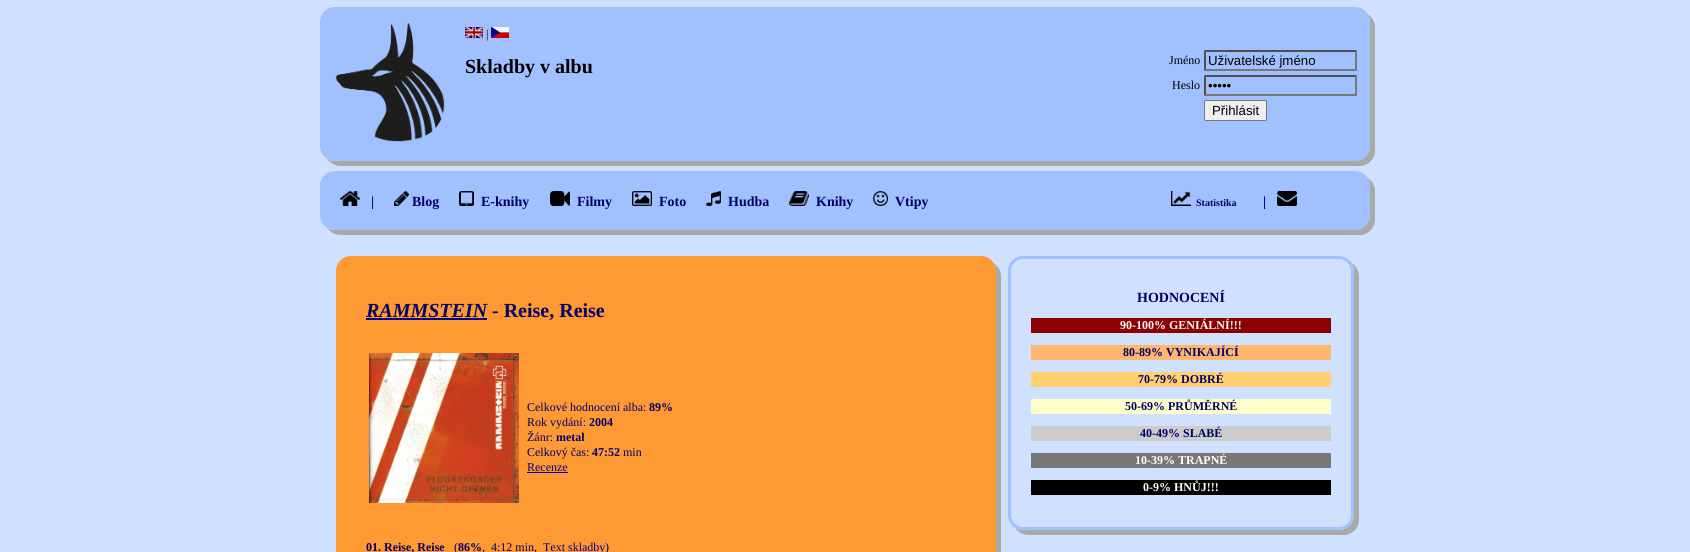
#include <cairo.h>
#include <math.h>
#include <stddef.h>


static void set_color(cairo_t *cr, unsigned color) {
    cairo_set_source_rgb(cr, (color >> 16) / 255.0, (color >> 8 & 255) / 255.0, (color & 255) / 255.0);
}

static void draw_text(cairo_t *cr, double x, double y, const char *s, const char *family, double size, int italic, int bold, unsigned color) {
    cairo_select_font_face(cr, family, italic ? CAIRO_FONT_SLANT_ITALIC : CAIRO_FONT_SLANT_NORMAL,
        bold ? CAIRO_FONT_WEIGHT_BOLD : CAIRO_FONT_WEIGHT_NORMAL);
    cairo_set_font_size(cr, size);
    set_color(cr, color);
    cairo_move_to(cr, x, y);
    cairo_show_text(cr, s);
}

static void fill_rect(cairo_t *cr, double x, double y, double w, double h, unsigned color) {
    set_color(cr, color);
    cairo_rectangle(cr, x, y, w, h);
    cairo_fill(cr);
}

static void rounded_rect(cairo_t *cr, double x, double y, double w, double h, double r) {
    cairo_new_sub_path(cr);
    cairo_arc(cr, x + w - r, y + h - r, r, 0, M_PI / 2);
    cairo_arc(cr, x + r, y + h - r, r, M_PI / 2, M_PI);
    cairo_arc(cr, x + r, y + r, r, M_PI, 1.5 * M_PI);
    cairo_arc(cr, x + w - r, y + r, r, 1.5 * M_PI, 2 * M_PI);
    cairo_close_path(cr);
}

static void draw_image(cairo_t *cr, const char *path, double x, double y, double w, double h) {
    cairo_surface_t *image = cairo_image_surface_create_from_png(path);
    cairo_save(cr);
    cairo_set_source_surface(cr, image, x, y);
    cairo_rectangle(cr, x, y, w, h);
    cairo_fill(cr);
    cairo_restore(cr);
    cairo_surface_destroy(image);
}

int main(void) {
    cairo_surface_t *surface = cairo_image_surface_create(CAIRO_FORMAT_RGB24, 1690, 552);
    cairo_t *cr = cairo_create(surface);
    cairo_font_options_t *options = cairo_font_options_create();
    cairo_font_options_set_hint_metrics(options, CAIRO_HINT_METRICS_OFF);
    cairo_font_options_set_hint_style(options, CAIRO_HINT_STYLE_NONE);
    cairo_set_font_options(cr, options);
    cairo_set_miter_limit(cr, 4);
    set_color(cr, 0xD0E0FF);
    cairo_paint(cr);
    set_color(cr, 0xA9A9A9);
    cairo_new_path(cr);
    cairo_move_to(cr, 327, 159);
    cairo_curve_to(cr, 330, 163, 335, 166, 340, 166);
    cairo_line_to(cr, 1360, 166);
    cairo_curve_to(cr, 1368, 166, 1375, 159, 1375, 151);
    cairo_line_to(cr, 1375, 27);
    cairo_curve_to(cr, 1375, 22, 1372, 17, 1368, 14);
    cairo_curve_to(cr, 1369, 16, 1370, 19, 1370, 22);
    cairo_line_to(cr, 1370, 146);
    cairo_curve_to(cr, 1370, 154, 1363, 161, 1355, 161);
    cairo_line_to(cr, 335, 161);
    cairo_curve_to(cr, 332, 161, 329, 160, 327, 159);
    cairo_close_path(cr);
    cairo_fill(cr);
    set_color(cr, 0xA0C0FF);
    rounded_rect(cr, 320, 7, 1050, 154, 15);
    cairo_fill(cr);
    draw_image(cr, "assets/img1.png", 335, 22, 110, 120);
    draw_image(cr, "assets/img2.png", 465, 27, 18, 11);
    draw_text(cr, 486, 38, "|", "Liberation Serif", 12, 0, 0, 0x000000);
    draw_image(cr, "assets/img3.png", 491, 27, 18, 11);
    draw_text(cr, 465, 73, "Skladby v albu", "Liberation Serif", 20, 0, 1, 0x000000);
    draw_text(cr, 1169, 64, "Jméno", "Liberation Serif", 12, 0, 0, 0x000000);
    set_color(cr, 0x4F4F4F);
    cairo_new_path(cr);
    cairo_move_to(cr, 1204, 50);
    cairo_line_to(cr, 1357, 50);
    cairo_line_to(cr, 1355, 52);
    cairo_line_to(cr, 1206, 52);
    cairo_close_path(cr);
    cairo_fill(cr);
    set_color(cr, 0x767676);
    cairo_new_path(cr);
    cairo_move_to(cr, 1357, 50);
    cairo_line_to(cr, 1357, 71);
    cairo_line_to(cr, 1355, 69);
    cairo_line_to(cr, 1355, 52);
    cairo_close_path(cr);
    cairo_fill(cr);
    cairo_new_path(cr);
    cairo_move_to(cr, 1357, 71);
    cairo_line_to(cr, 1204, 71);
    cairo_line_to(cr, 1206, 69);
    cairo_line_to(cr, 1355, 69);
    cairo_close_path(cr);
    cairo_fill(cr);
    set_color(cr, 0x4F4F4F);
    cairo_new_path(cr);
    cairo_move_to(cr, 1204, 71);
    cairo_line_to(cr, 1204, 50);
    cairo_line_to(cr, 1206, 52);
    cairo_line_to(cr, 1206, 69);
    cairo_close_path(cr);
    cairo_fill(cr);
    draw_text(cr, 1208, 65, "Uživatelské jméno", "Liberation Sans", 13.25, 0, 0, 0x000000);
    draw_text(cr, 1172, 89, "Heslo", "Liberation Serif", 12, 0, 0, 0x000000);
    set_color(cr, 0x4F4F4F);
    cairo_new_path(cr);
    cairo_move_to(cr, 1204, 75);
    cairo_line_to(cr, 1357, 75);
    cairo_line_to(cr, 1355, 77);
    cairo_line_to(cr, 1206, 77);
    cairo_close_path(cr);
    cairo_fill(cr);
    set_color(cr, 0x767676);
    cairo_new_path(cr);
    cairo_move_to(cr, 1357, 75);
    cairo_line_to(cr, 1357, 96);
    cairo_line_to(cr, 1355, 94);
    cairo_line_to(cr, 1355, 77);
    cairo_close_path(cr);
    cairo_fill(cr);
    cairo_new_path(cr);
    cairo_move_to(cr, 1357, 96);
    cairo_line_to(cr, 1204, 96);
    cairo_line_to(cr, 1206, 94);
    cairo_line_to(cr, 1355, 94);
    cairo_close_path(cr);
    cairo_fill(cr);
    set_color(cr, 0x4F4F4F);
    cairo_new_path(cr);
    cairo_move_to(cr, 1204, 96);
    cairo_line_to(cr, 1204, 75);
    cairo_line_to(cr, 1206, 77);
    cairo_line_to(cr, 1206, 94);
    cairo_close_path(cr);
    cairo_fill(cr);
    draw_text(cr, 1208, 90, "•••••", "Liberation Sans", 13.25, 0, 0, 0x000000);
    set_color(cr, 0xEFEFEF);
    rounded_rect(cr, 1204.5, 100.5, 62, 20, 1.5);
    cairo_fill_preserve(cr);
    set_color(cr, 0x767676);
    cairo_set_line_width(cr, 1);
    cairo_stroke(cr);
    draw_text(cr, 1212, 115, "Přihlásit", "Liberation Sans", 13.25, 0, 0, 0x000000);
    set_color(cr, 0xA9A9A9);
    cairo_new_path(cr);
    cairo_move_to(cr, 327, 228);
    cairo_curve_to(cr, 330, 232, 335, 235, 340, 235);
    cairo_line_to(cr, 1360, 235);
    cairo_curve_to(cr, 1368, 235, 1375, 228, 1375, 220);
    cairo_line_to(cr, 1375, 191);
    cairo_curve_to(cr, 1375, 186, 1372, 181, 1368, 178);
    cairo_curve_to(cr, 1369, 180, 1370, 183, 1370, 186);
    cairo_line_to(cr, 1370, 215);
    cairo_curve_to(cr, 1370, 223, 1363, 230, 1355, 230);
    cairo_line_to(cr, 335, 230);
    cairo_curve_to(cr, 332, 230, 329, 229, 327, 228);
    cairo_close_path(cr);
    cairo_fill(cr);
    set_color(cr, 0xA0C0FF);
    rounded_rect(cr, 320, 171, 1050, 59, 15);
    cairo_fill(cr);
    draw_image(cr, "assets/img4.png", 340, 191, 20, 15);
    draw_text(cr, 371, 206, "|", "Liberation Serif", 14, 0, 1, 0x00008B);
    draw_image(cr, "assets/img5.png", 394, 191, 15, 15);
    draw_text(cr, 412, 206, "Blog", "Liberation Serif", 14, 0, 1, 0x000066);
    draw_image(cr, "assets/img6.png", 459, 191, 15, 15);
    draw_text(cr, 481, 206, "E-knihy", "Liberation Serif", 14, 0, 1, 0x000066);
    draw_image(cr, "assets/img7.png", 550, 191, 20, 15);
    draw_text(cr, 577, 206, "Filmy", "Liberation Serif", 14, 0, 1, 0x000066);
    draw_image(cr, "assets/img8.png", 632, 191, 20, 15);
    draw_text(cr, 659, 206, "Foto", "Liberation Serif", 14, 0, 1, 0x000066);
    draw_image(cr, "assets/img9.png", 706, 191, 15, 15);
    draw_text(cr, 728, 206, "Hudba", "Liberation Serif", 14, 0, 1, 0x000066);
    draw_image(cr, "assets/img10.png", 789, 191, 20, 15);
    draw_text(cr, 816, 206, "Knihy", "Liberation Serif", 14, 0, 1, 0x000066);
    draw_image(cr, "assets/img11.png", 873, 191, 15, 15);
    draw_text(cr, 895, 206, "Vtipy", "Liberation Serif", 14, 0, 1, 0x000066);
    draw_image(cr, "assets/img12.png", 1171, 191, 20, 15);
    draw_text(cr, 1196, 206, "Statistika", "Liberation Serif", 10, 0, 1, 0x000066);
    draw_text(cr, 1263, 206, "|", "Liberation Serif", 14, 0, 1, 0x00008B);
    draw_image(cr, "assets/img13.png", 1277, 191, 20, 15);
    set_color(cr, 0xA9A9A9);
    cairo_new_path(cr);
    cairo_move_to(cr, 343, 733);
    cairo_curve_to(cr, 346, 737, 351, 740, 356, 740);
    cairo_line_to(cr, 986, 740);
    cairo_curve_to(cr, 994, 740, 1001, 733, 1001, 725);
    cairo_line_to(cr, 1001, 276);
    cairo_curve_to(cr, 1001, 271, 998, 266, 994, 263);
    cairo_curve_to(cr, 995, 265, 996, 268, 996, 271);
    cairo_line_to(cr, 996, 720);
    cairo_curve_to(cr, 996, 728, 989, 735, 981, 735);
    cairo_line_to(cr, 351, 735);
    cairo_curve_to(cr, 348, 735, 345, 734, 343, 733);
    cairo_close_path(cr);
    cairo_fill(cr);
    set_color(cr, 0xFF9933);
    rounded_rect(cr, 336, 256, 660, 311, 15);
    cairo_fill(cr);
    draw_text(cr, 366, 317, "RAMMSTEIN", "Liberation Serif", 20, 1, 1, 0x000066);
    fill_rect(cr, 366, 318, 121, 2, 0x00008B);
    draw_text(cr, 492, 317, "- Reise, Reise", "Liberation Serif", 20, 0, 1, 0x000066);
    draw_image(cr, "assets/img14.png", 369, 353, 150, 150);
    draw_text(cr, 527, 411, "Celkové hodnocení alba:", "Liberation Serif", 12, 0, 0, 0x000066);
    draw_text(cr, 649, 411, "89%", "Liberation Serif", 12, 0, 1, 0x000066);
    draw_text(cr, 527, 426, "Rok vydání:", "Liberation Serif", 12, 0, 0, 0x000066);
    draw_text(cr, 589, 426, "2004", "Liberation Serif", 12, 0, 1, 0x000066);
    draw_text(cr, 527, 441, "Žánr:", "Liberation Serif", 12, 0, 0, 0x000066);
    draw_text(cr, 556, 441, "metal", "Liberation Serif", 12, 0, 1, 0x000066);
    draw_text(cr, 527, 456, "Celkový čas:", "Liberation Serif", 12, 0, 0, 0x000066);
    draw_text(cr, 592, 456, "47:52", "Liberation Serif", 12, 0, 1, 0x000066);
    draw_text(cr, 623, 456, "min", "Liberation Serif", 12, 0, 0, 0x000066);
    draw_text(cr, 527, 471, "Recenze", "Liberation Serif", 12, 0, 0, 0x00008B);
    fill_rect(cr, 527, 472, 41, 1, 0x00008B);
    draw_text(cr, 366, 551, "01. Reise, Reise", "Liberation Serif", 12, 0, 1, 0x000066);
    draw_text(cr, 454, 551, "(", "Liberation Serif", 12, 0, 0, 0x000066);
    draw_text(cr, 458, 551, "86%", "Liberation Serif", 12, 0, 1, 0x000066);
    draw_text(cr, 482, 551, ",  4:12 min,", "Liberation Serif", 12, 0, 0, 0x000066);
    draw_text(cr, 543, 551, "Text skladby", "Liberation Serif", 12, 0, 0, 0x00008B);
    draw_text(cr, 605, 551, ")", "Liberation Serif", 12, 0, 0, 0x000066);
    set_color(cr, 0xA9A9A9);
    cairo_new_path(cr);
    cairo_move_to(cr, 1015, 528);
    cairo_curve_to(cr, 1018, 532, 1023, 535, 1028, 535);
    cairo_line_to(cr, 1344, 535);
    cairo_curve_to(cr, 1352, 535, 1359, 528, 1359, 520);
    cairo_line_to(cr, 1359, 276);
    cairo_curve_to(cr, 1359, 271, 1356, 266, 1352, 263);
    cairo_curve_to(cr, 1353, 265, 1354, 268, 1354, 271);
    cairo_line_to(cr, 1354, 515);
    cairo_curve_to(cr, 1354, 523, 1347, 530, 1339, 530);
    cairo_line_to(cr, 1023, 530);
    cairo_curve_to(cr, 1020, 530, 1017, 529, 1015, 528);
    cairo_close_path(cr);
    cairo_fill(cr);
    set_color(cr, 0xD0E0FF);
    rounded_rect(cr, 1009.5, 257.5, 343, 271, 13.5);
    cairo_fill_preserve(cr);
    set_color(cr, 0xA0C0FF);
    cairo_set_line_width(cr, 3);
    cairo_stroke(cr);
    draw_text(cr, 1137, 302, "HODNOCENÍ", "Liberation Serif", 14, 0, 1, 0x000066);
    fill_rect(cr, 1031, 318, 300, 15, 0x8B0000);
    draw_text(cr, 1120, 329, "90-100% GENIÁLNÍ!!!", "Liberation Serif", 12, 0, 1, 0xFFFFFF);
    fill_rect(cr, 1031, 345, 300, 15, 0xFFB770);
    draw_text(cr, 1123, 356, "80-89% VYNIKAJÍCÍ", "Liberation Serif", 12, 0, 1, 0x000066);
    fill_rect(cr, 1031, 372, 300, 15, 0xFFD070);
    draw_text(cr, 1138, 383, "70-79% DOBRÉ", "Liberation Serif", 12, 0, 1, 0x000066);
    fill_rect(cr, 1031, 399, 300, 15, 0xFFFFCC);
    draw_text(cr, 1125, 410, "50-69% PRŮMĚRNÉ", "Liberation Serif", 12, 0, 1, 0x000066);
    fill_rect(cr, 1031, 426, 300, 15, 0xCCCCCC);
    draw_text(cr, 1140, 437, "40-49% SLABÉ", "Liberation Serif", 12, 0, 1, 0x000066);
    fill_rect(cr, 1031, 453, 300, 15, 0x777777);
    draw_text(cr, 1135, 464, "10-39% TRAPNÉ", "Liberation Serif", 12, 0, 1, 0xFFFFFF);
    fill_rect(cr, 1031, 480, 300, 15, 0x000000);
    draw_text(cr, 1143, 491, "0-9% HNŮJ!!!", "Liberation Serif", 12, 0, 1, 0xFFFFFF);
    cairo_surface_write_to_png(surface, "output.png");
    cairo_font_options_destroy(options);
    cairo_destroy(cr);
    cairo_surface_destroy(surface);
    return 0;
}
